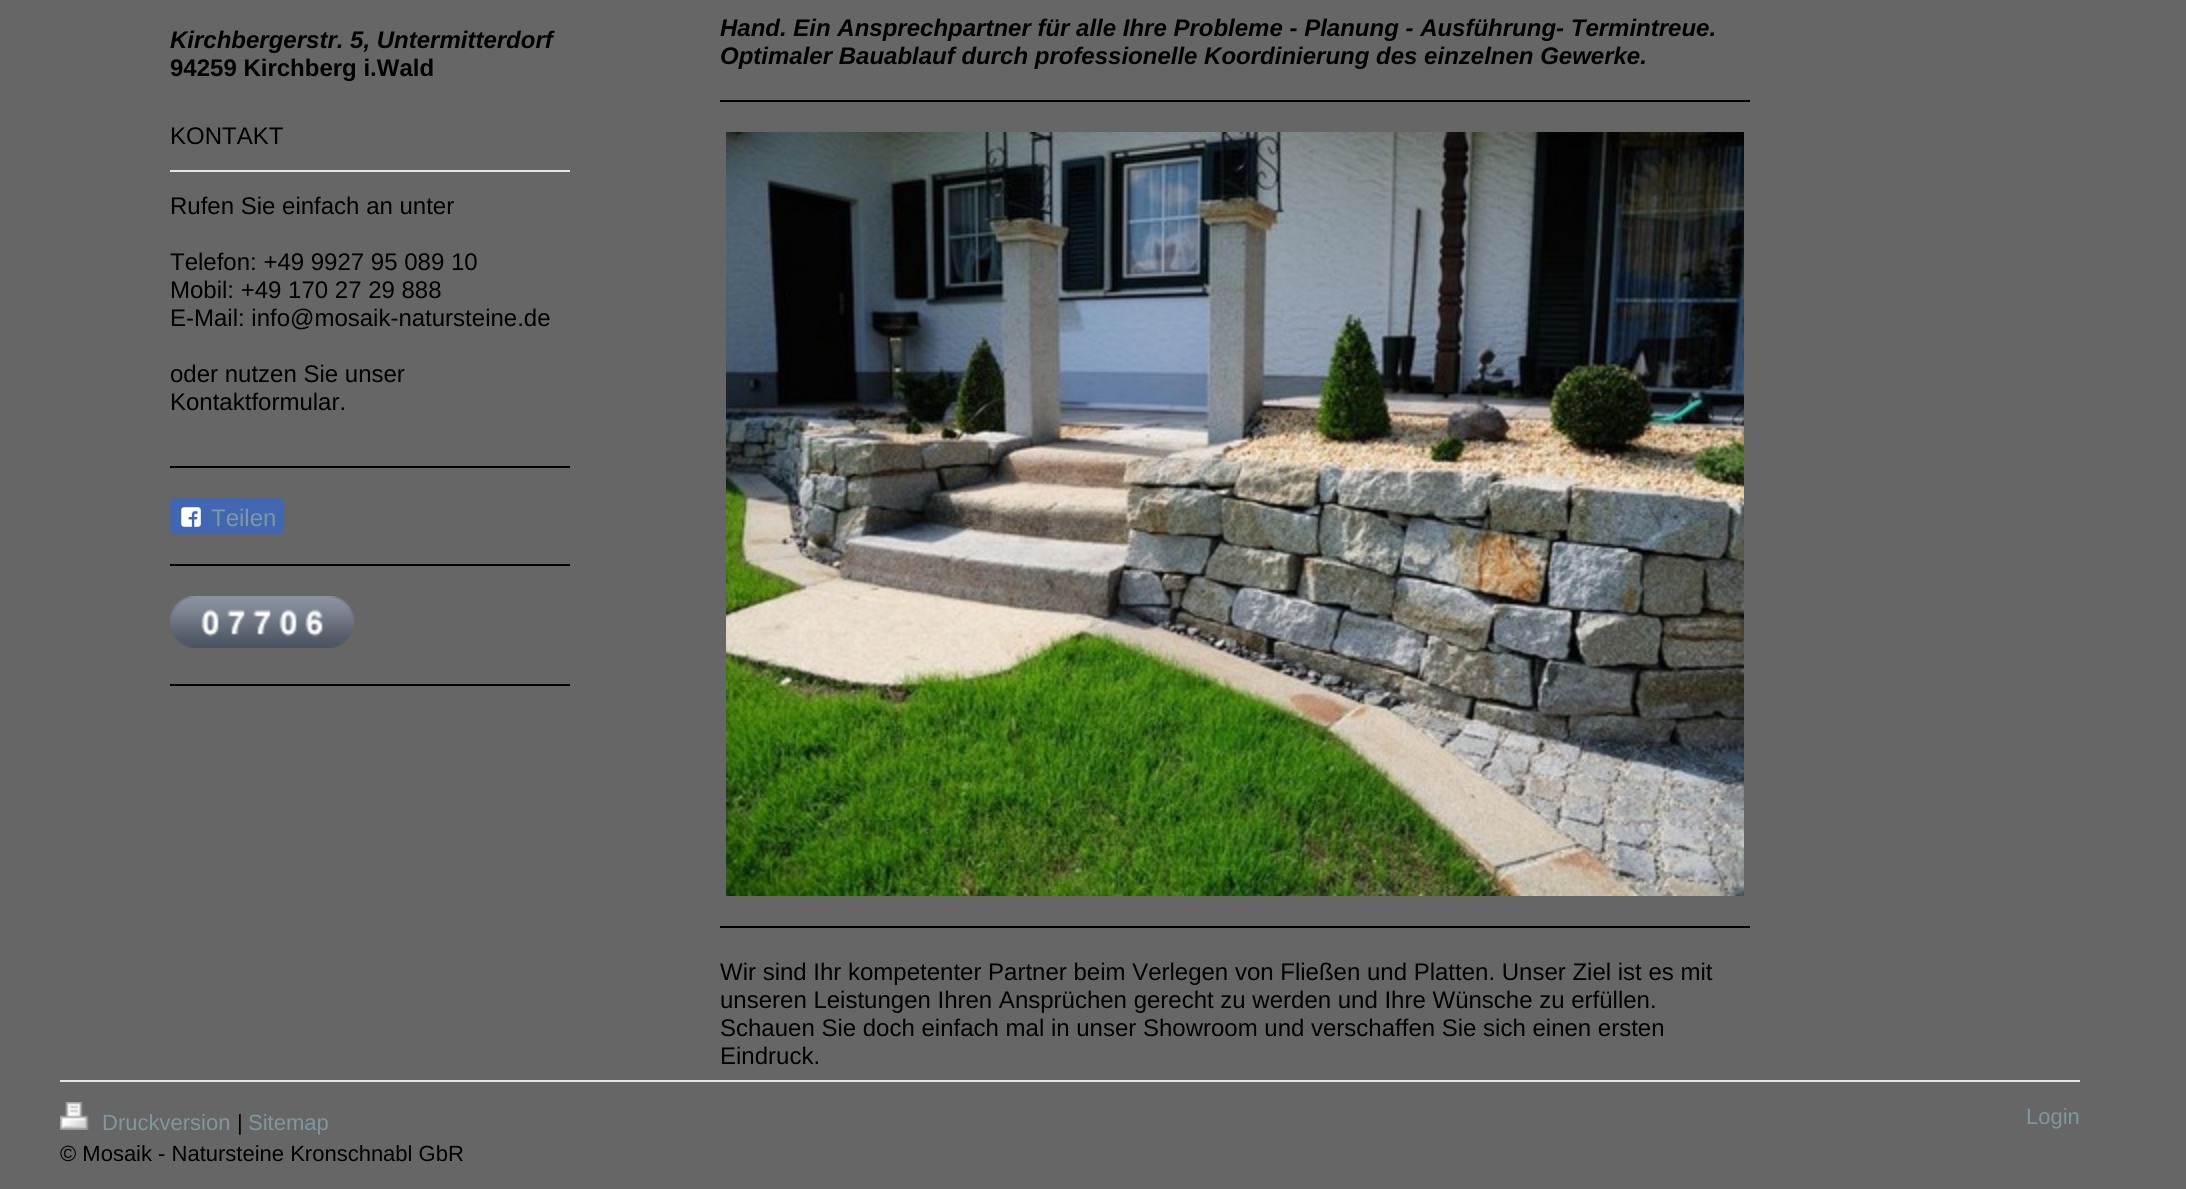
#include <cairo.h>
#include <math.h>
#include <stddef.h>


static void set_color(cairo_t *cr, unsigned color) {
    cairo_set_source_rgb(cr, (color >> 16) / 255.0, (color >> 8 & 255) / 255.0, (color & 255) / 255.0);
}

static void draw_text(cairo_t *cr, double x, double y, const char *s, const char *family, double size, int italic, int bold, unsigned color) {
    cairo_select_font_face(cr, family, italic ? CAIRO_FONT_SLANT_ITALIC : CAIRO_FONT_SLANT_NORMAL,
        bold ? CAIRO_FONT_WEIGHT_BOLD : CAIRO_FONT_WEIGHT_NORMAL);
    cairo_set_font_size(cr, size);
    set_color(cr, color);
    cairo_move_to(cr, x, y);
    cairo_show_text(cr, s);
}

static void fill_rect(cairo_t *cr, double x, double y, double w, double h, unsigned color) {
    set_color(cr, color);
    cairo_rectangle(cr, x, y, w, h);
    cairo_fill(cr);
}

static void rounded_rect(cairo_t *cr, double x, double y, double w, double h, double r) {
    cairo_new_sub_path(cr);
    cairo_arc(cr, x + w - r, y + h - r, r, 0, M_PI / 2);
    cairo_arc(cr, x + r, y + h - r, r, M_PI / 2, M_PI);
    cairo_arc(cr, x + r, y + r, r, M_PI, 1.5 * M_PI);
    cairo_arc(cr, x + w - r, y + r, r, 1.5 * M_PI, 2 * M_PI);
    cairo_close_path(cr);
}

static void draw_image(cairo_t *cr, const char *path, double x, double y, double w, double h) {
    cairo_surface_t *image = cairo_image_surface_create_from_png(path);
    cairo_save(cr);
    cairo_set_source_surface(cr, image, x, y);
    cairo_rectangle(cr, x, y, w, h);
    cairo_fill(cr);
    cairo_restore(cr);
    cairo_surface_destroy(image);
}

int main(void) {
    cairo_surface_t *surface = cairo_image_surface_create(CAIRO_FORMAT_RGB24, 2186, 1189);
    cairo_t *cr = cairo_create(surface);
    cairo_font_options_t *options = cairo_font_options_create();
    cairo_font_options_set_hint_metrics(options, CAIRO_HINT_METRICS_OFF);
    cairo_font_options_set_hint_style(options, CAIRO_HINT_STYLE_NONE);
    cairo_set_font_options(cr, options);
    cairo_set_miter_limit(cr, 4);
    set_color(cr, 0x666666);
    cairo_paint(cr);
    draw_text(cr, 170, 48, "Kirchbergerstr. 5, Untermitterdorf", "Liberation Sans", 24, 1, 1, 0x000000);
    draw_text(cr, 170, 76, "94259 Kirchberg i.Wald", "Liberation Sans", 24, 0, 1, 0x000000);
    fill_rect(cr, 170, 170, 400, 2, 0xE5E5E5);
    draw_text(cr, 170, 144, "KONTAKT", "Liberation Sans", 24, 0, 0, 0x000000);
    draw_text(cr, 170, 214, "Rufen Sie einfach an unter", "Liberation Sans", 24, 0, 0, 0x000000);
    draw_text(cr, 170, 270, "Telefon: +49 9927 95 089 10", "Liberation Sans", 24, 0, 0, 0x000000);
    draw_text(cr, 170, 298, "Mobil: +49 170 27 29 888", "Liberation Sans", 24, 0, 0, 0x000000);
    draw_text(cr, 170, 326, "E-Mail: info@mosaik-natursteine.de", "Liberation Sans", 24, 0, 0, 0x000000);
    draw_text(cr, 170, 382, "oder nutzen Sie unser", "Liberation Sans", 24, 0, 0, 0x000000);
    draw_text(cr, 170, 410, "Kontaktformular.", "Liberation Sans", 24, 0, 0, 0x000000);
    fill_rect(cr, 170, 466, 400, 2, 0x000000);
    set_color(cr, 0x4267B2);
    rounded_rect(cr, 170, 498, 114, 36, 6);
    cairo_fill(cr);
    draw_image(cr, "assets/img1.png", 181, 507, 20, 20);
    draw_text(cr, 211, 526, "Teilen", "Liberation Sans", 24, 0, 0, 0x7F979E);
    fill_rect(cr, 170, 564, 400, 2, 0x000000);
    draw_image(cr, "assets/img2.png", 170, 596, 28, 52);
    draw_image(cr, "assets/img3.png", 198, 596, 26, 52);
    draw_image(cr, "assets/img4.png", 224, 596, 26, 52);
    draw_image(cr, "assets/img4.png", 250, 596, 26, 52);
    draw_image(cr, "assets/img3.png", 276, 596, 26, 52);
    draw_image(cr, "assets/img5.png", 302, 596, 26, 52);
    draw_image(cr, "assets/img6.png", 328, 596, 26, 52);
    fill_rect(cr, 170, 684, 400, 2, 0x000000);
    draw_text(cr, 720, 36, "Hand. Ein Ansprechpartner für alle Ihre Probleme - Planung - Ausführung- Termintreue.", "Liberation Sans", 24, 1, 1, 0x000000);
    draw_text(cr, 720, 64, "Optimaler Bauablauf durch professionelle Koordinierung des einzelnen Gewerke.", "Liberation Sans", 24, 1, 1, 0x000000);
    fill_rect(cr, 720, 100, 1030, 2, 0x000000);
    draw_image(cr, "assets/img7.png", 726, 132, 1018, 764);
    fill_rect(cr, 720, 926, 1030, 2, 0x000000);
    draw_text(cr, 720, 980, "Wir sind Ihr kompetenter Partner beim Verlegen von Fließen und Platten. Unser Ziel ist es mit", "Liberation Sans", 24, 0, 0, 0x000000);
    draw_text(cr, 720, 1008, "unseren Leistungen Ihren Ansprüchen gerecht zu werden und Ihre Wünsche zu erfüllen.", "Liberation Sans", 24, 0, 0, 0x000000);
    draw_text(cr, 720, 1036, "Schauen Sie doch einfach mal in unser Showroom und verschaffen Sie sich einen ersten", "Liberation Sans", 24, 0, 0, 0x000000);
    draw_text(cr, 720, 1064, "Eindruck.", "Liberation Sans", 24, 0, 0, 0x000000);
    fill_rect(cr, 60, 1080, 2020, 2, 0xE5E5E5);
    draw_image(cr, "assets/img8.png", 60, 1102, 29, 28);
    draw_text(cr, 102, 1130, "Druckversion", "Liberation Sans", 22, 0, 0, 0x7F979E);
    draw_text(cr, 237, 1130, "|", "Liberation Sans", 22, 0, 0, 0x000000);
    draw_text(cr, 248, 1130, "Sitemap", "Liberation Sans", 22, 0, 0, 0x7F979E);
    draw_text(cr, 60, 1161, "© Mosaik - Natursteine Kronschnabl GbR", "Liberation Sans", 22, 0, 0, 0x000000);
    draw_text(cr, 2026, 1124, "Login", "Liberation Sans", 22, 0, 0, 0x7F979E);
    cairo_surface_write_to_png(surface, "output.png");
    cairo_font_options_destroy(options);
    cairo_destroy(cr);
    cairo_surface_destroy(surface);
    return 0;
}
